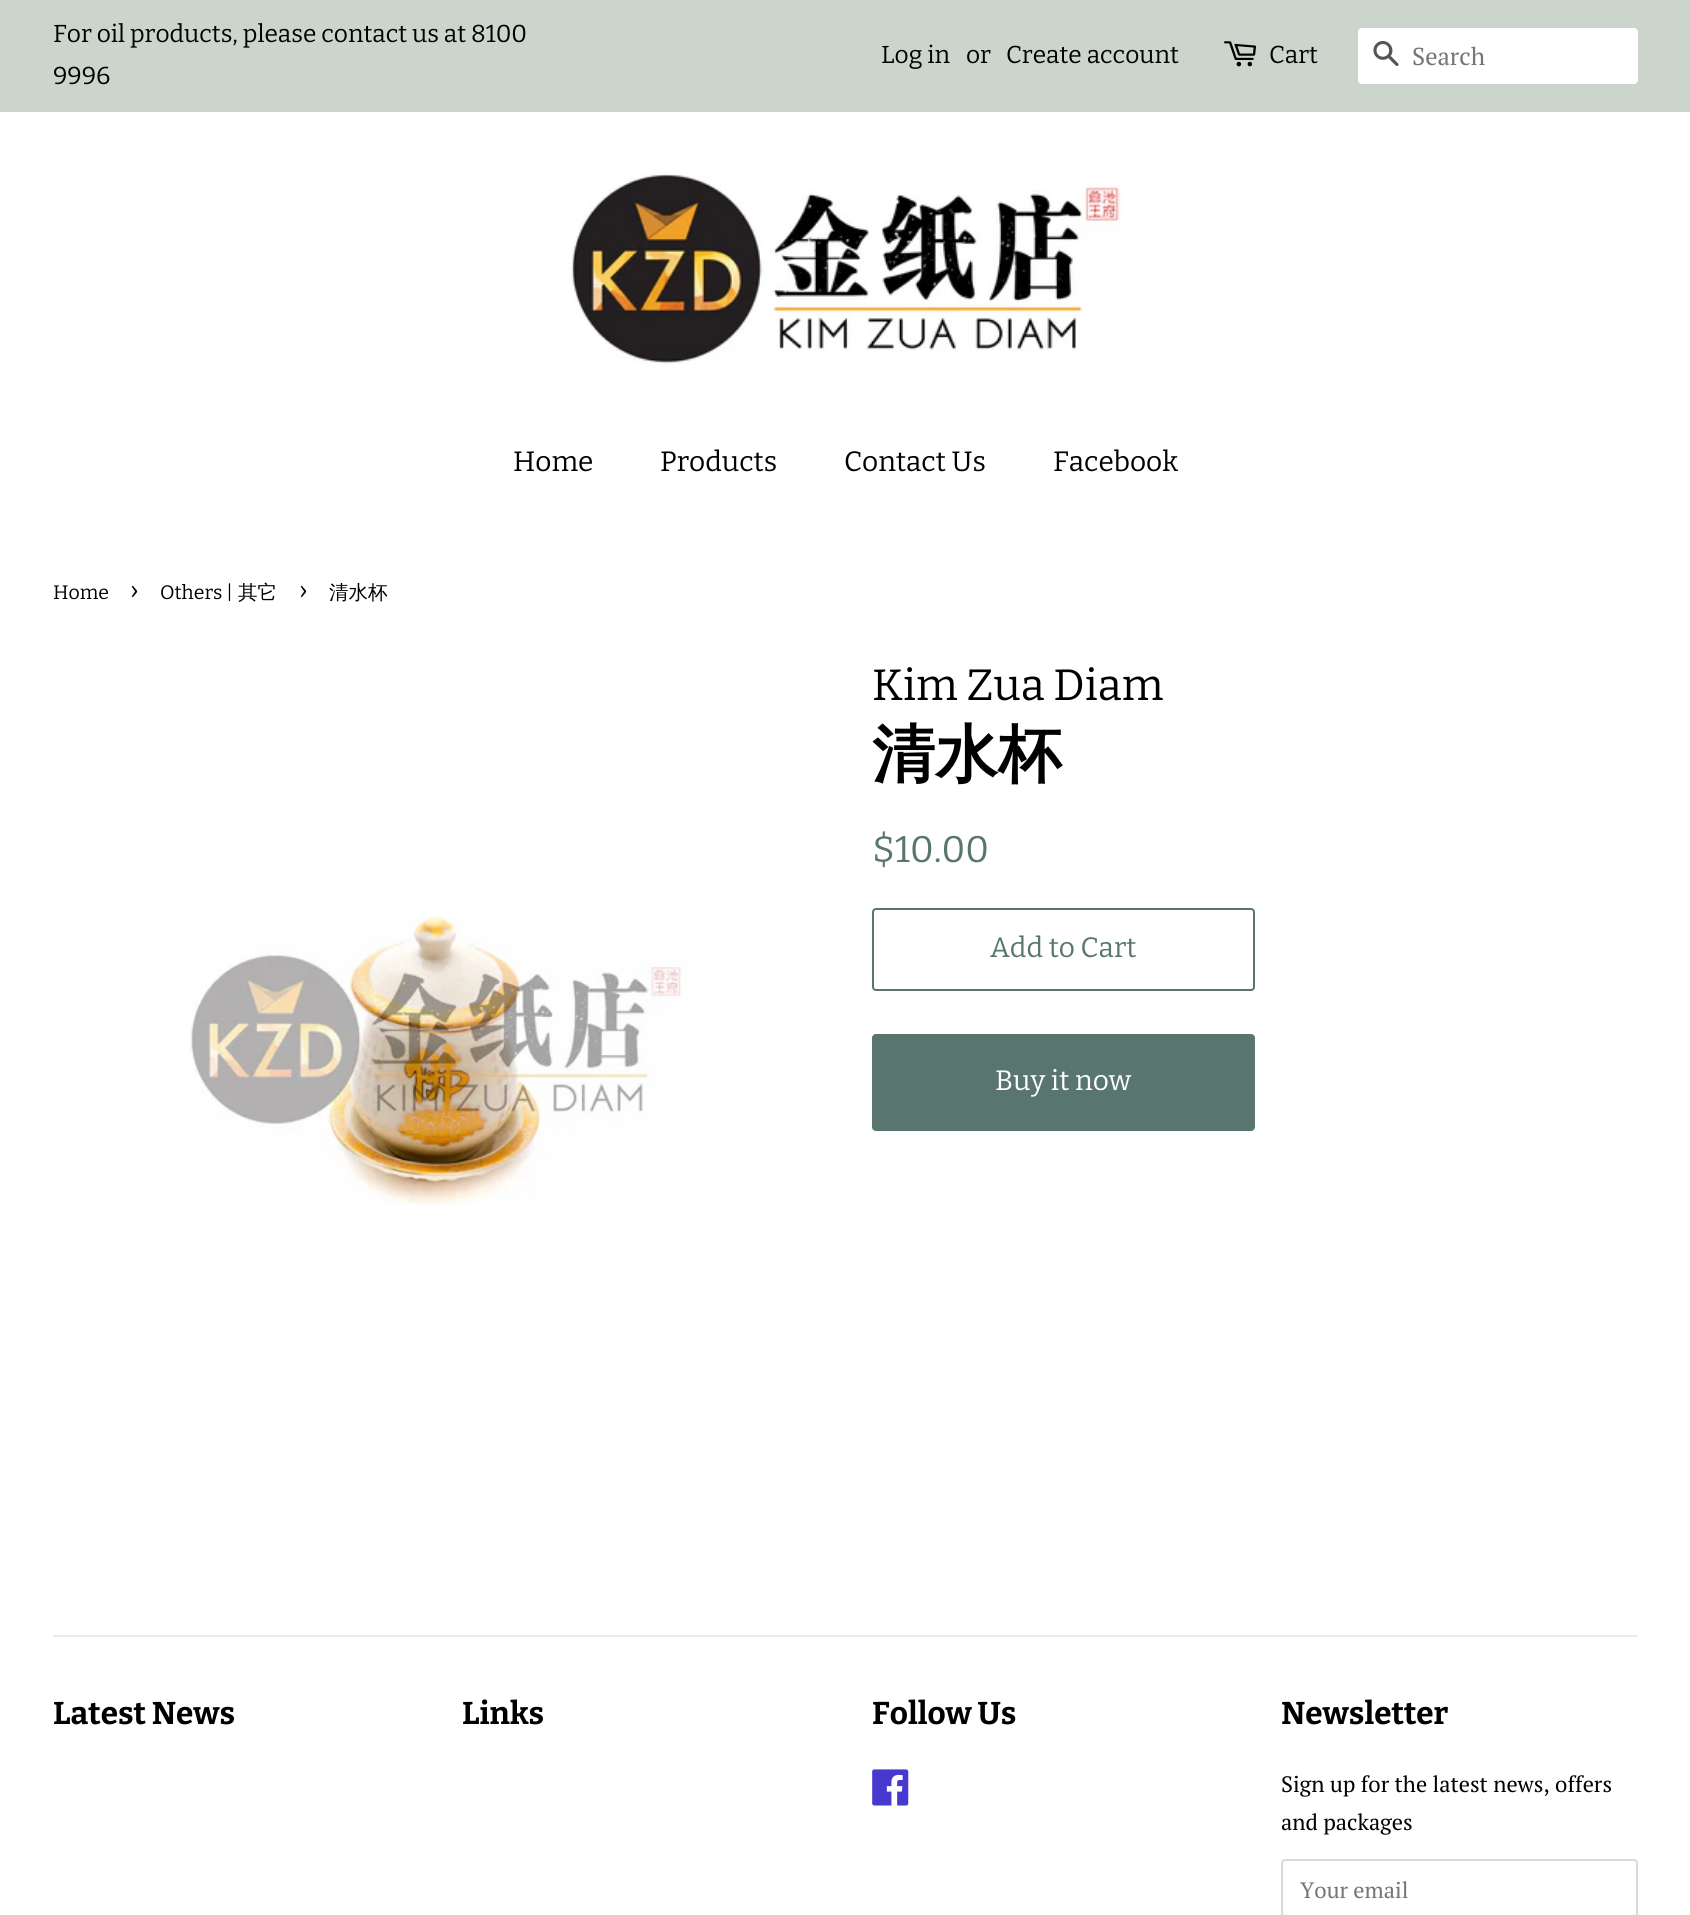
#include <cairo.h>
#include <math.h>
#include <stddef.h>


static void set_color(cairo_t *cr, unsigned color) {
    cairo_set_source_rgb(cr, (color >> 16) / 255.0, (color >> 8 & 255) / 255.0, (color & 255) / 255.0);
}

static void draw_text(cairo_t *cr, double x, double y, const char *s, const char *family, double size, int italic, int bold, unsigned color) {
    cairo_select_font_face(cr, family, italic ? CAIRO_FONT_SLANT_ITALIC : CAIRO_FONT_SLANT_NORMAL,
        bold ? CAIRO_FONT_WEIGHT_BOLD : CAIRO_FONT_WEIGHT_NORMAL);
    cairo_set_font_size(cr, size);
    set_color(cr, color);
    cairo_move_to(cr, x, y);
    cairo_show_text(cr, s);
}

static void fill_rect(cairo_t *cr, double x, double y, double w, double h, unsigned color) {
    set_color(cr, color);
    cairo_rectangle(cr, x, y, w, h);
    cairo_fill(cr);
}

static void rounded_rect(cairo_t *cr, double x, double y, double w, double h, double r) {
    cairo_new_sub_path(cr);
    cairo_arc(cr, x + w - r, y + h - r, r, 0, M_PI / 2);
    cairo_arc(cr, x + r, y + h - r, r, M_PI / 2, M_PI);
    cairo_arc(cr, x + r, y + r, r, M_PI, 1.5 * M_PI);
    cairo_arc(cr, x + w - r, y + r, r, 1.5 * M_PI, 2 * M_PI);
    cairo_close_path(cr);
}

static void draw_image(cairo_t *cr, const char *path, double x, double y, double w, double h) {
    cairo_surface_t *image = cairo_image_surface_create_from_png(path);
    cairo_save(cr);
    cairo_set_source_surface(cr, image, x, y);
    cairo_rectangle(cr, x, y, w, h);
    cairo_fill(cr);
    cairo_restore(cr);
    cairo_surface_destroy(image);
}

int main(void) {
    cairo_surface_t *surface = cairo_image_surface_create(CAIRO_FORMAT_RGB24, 1690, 1915);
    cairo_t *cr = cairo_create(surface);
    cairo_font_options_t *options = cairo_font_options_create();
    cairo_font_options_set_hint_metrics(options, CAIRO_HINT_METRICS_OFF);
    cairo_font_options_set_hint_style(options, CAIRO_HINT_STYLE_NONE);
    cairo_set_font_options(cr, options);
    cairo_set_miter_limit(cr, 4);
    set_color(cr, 0xFFFFFF);
    cairo_paint(cr);
    fill_rect(cr, 0, 0, 1690, 112, 0xCBD5CC);
    draw_text(cr, 53, 42, "For oil products, please contact us at 8100", "Bitter", 24.5, 0, 0, 0x000000);
    draw_text(cr, 53, 84, "9996", "Bitter", 24.5, 0, 0, 0x000000);
    draw_text(cr, 881, 63, "Log in", "Bitter", 24.5, 0, 0, 0x000000);
    draw_text(cr, 966, 63, "or", "Bitter", 24.5, 0, 0, 0x000000);
    draw_text(cr, 1006, 63, "Create account", "Bitter", 24.5, 0, 0, 0x000000);
    draw_image(cr, "assets/img1.png", 1224, 41, 32, 26);
    draw_text(cr, 1269, 63, "Cart", "Bitter", 24.5, 0, 0, 0x000000);
    set_color(cr, 0xFFFFFF);
    rounded_rect(cr, 1358, 28, 280, 56, 4);
    cairo_fill(cr);
    draw_image(cr, "assets/img2.png", 1373, 41, 26, 25);
    draw_text(cr, 1412, 65, "Search", "PT Serif", 24.5, 0, 0, 0x757575);
    draw_image(cr, "assets/img3.png", 571, 173, 552, 191);
    draw_text(cr, 513, 471, "Home", "Bitter", 28, 0, 0, 0x000000);
    draw_text(cr, 660, 471, "Products", "Bitter", 28, 0, 0, 0x000000);
    draw_text(cr, 844, 471, "Contact Us", "Bitter", 28, 0, 0, 0x000000);
    draw_text(cr, 1053, 471, "Facebook", "Bitter", 28, 0, 0, 0x000000);
    draw_text(cr, 53, 599, "Home", "Bitter", 19.5, 0, 0, 0x000000);
    draw_text(cr, 130, 599, "›", "Bitter", 28, 0, 0, 0x000000);
    draw_text(cr, 160, 599, "Others |", "Bitter", 19.5, 0, 0, 0x000000);
    draw_text(cr, 238, 599, "其它", "WenQuanYi Zen Hei Medium", 19.5, 0, 0, 0x000000);
    draw_text(cr, 299, 599, "›", "Bitter", 28, 0, 0, 0x000000);
    draw_text(cr, 329, 599, "清水杯", "WenQuanYi Zen Hei Medium", 19.5, 0, 0, 0x000000);
    draw_image(cr, "assets/img4.png", 189, 916, 498, 290);
    draw_text(cr, 872, 700, "Kim Zua Diam", "Bitter", 43.75, 0, 0, 0x000000);
    draw_text(cr, 872, 776, "清水杯", "WenQuanYi Zen Hei", 63, 0, 1, 0x000000);
    draw_text(cr, 872, 862, "$10.00", "Bitter", 37, 0, 0, 0x59756F);
    rounded_rect(cr, 873, 909, 381, 81, 3);
    cairo_stroke(cr);
    draw_text(cr, 990, 957, "Add to Cart", "Bitter", 28, 0, 0, 0x59756F);
    rounded_rect(cr, 872, 1034, 383, 97, 4);
    cairo_fill(cr);
    draw_text(cr, 995, 1090, "Buy it now", "Bitter", 28, 0, 0, 0xFFFFFF);
    fill_rect(cr, 53, 1635, 1585, 2, 0xEBEBEB);
    draw_text(cr, 53, 1724, "Latest News", "Bitter", 31.5, 0, 1, 0x000000);
    draw_text(cr, 462, 1724, "Links", "Bitter", 31.5, 0, 1, 0x000000);
    draw_text(cr, 872, 1724, "Follow Us", "Bitter", 31.5, 0, 1, 0x000000);
    draw_image(cr, "assets/img5.png", 872, 1769, 37, 37);
    draw_text(cr, 1281, 1724, "Newsletter", "Bitter", 31.5, 0, 1, 0x000000);
    draw_text(cr, 1281, 1792, "Sign up for the latest news, offers", "PT Serif", 22.25, 0, 0, 0x000000);
    draw_text(cr, 1281, 1830, "and packages", "PT Serif", 22.25, 0, 0, 0x000000);
    rounded_rect(cr, 1282, 1860, 355, 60, 3);
    set_color(cr, 0xD9D9D9);
    cairo_stroke(cr);
    draw_text(cr, 1300, 1898, "Your email", "PT Serif", 22.25, 0, 0, 0x757575);
    cairo_surface_write_to_png(surface, "output.png");
    cairo_font_options_destroy(options);
    cairo_destroy(cr);
    cairo_surface_destroy(surface);
    return 0;
}
